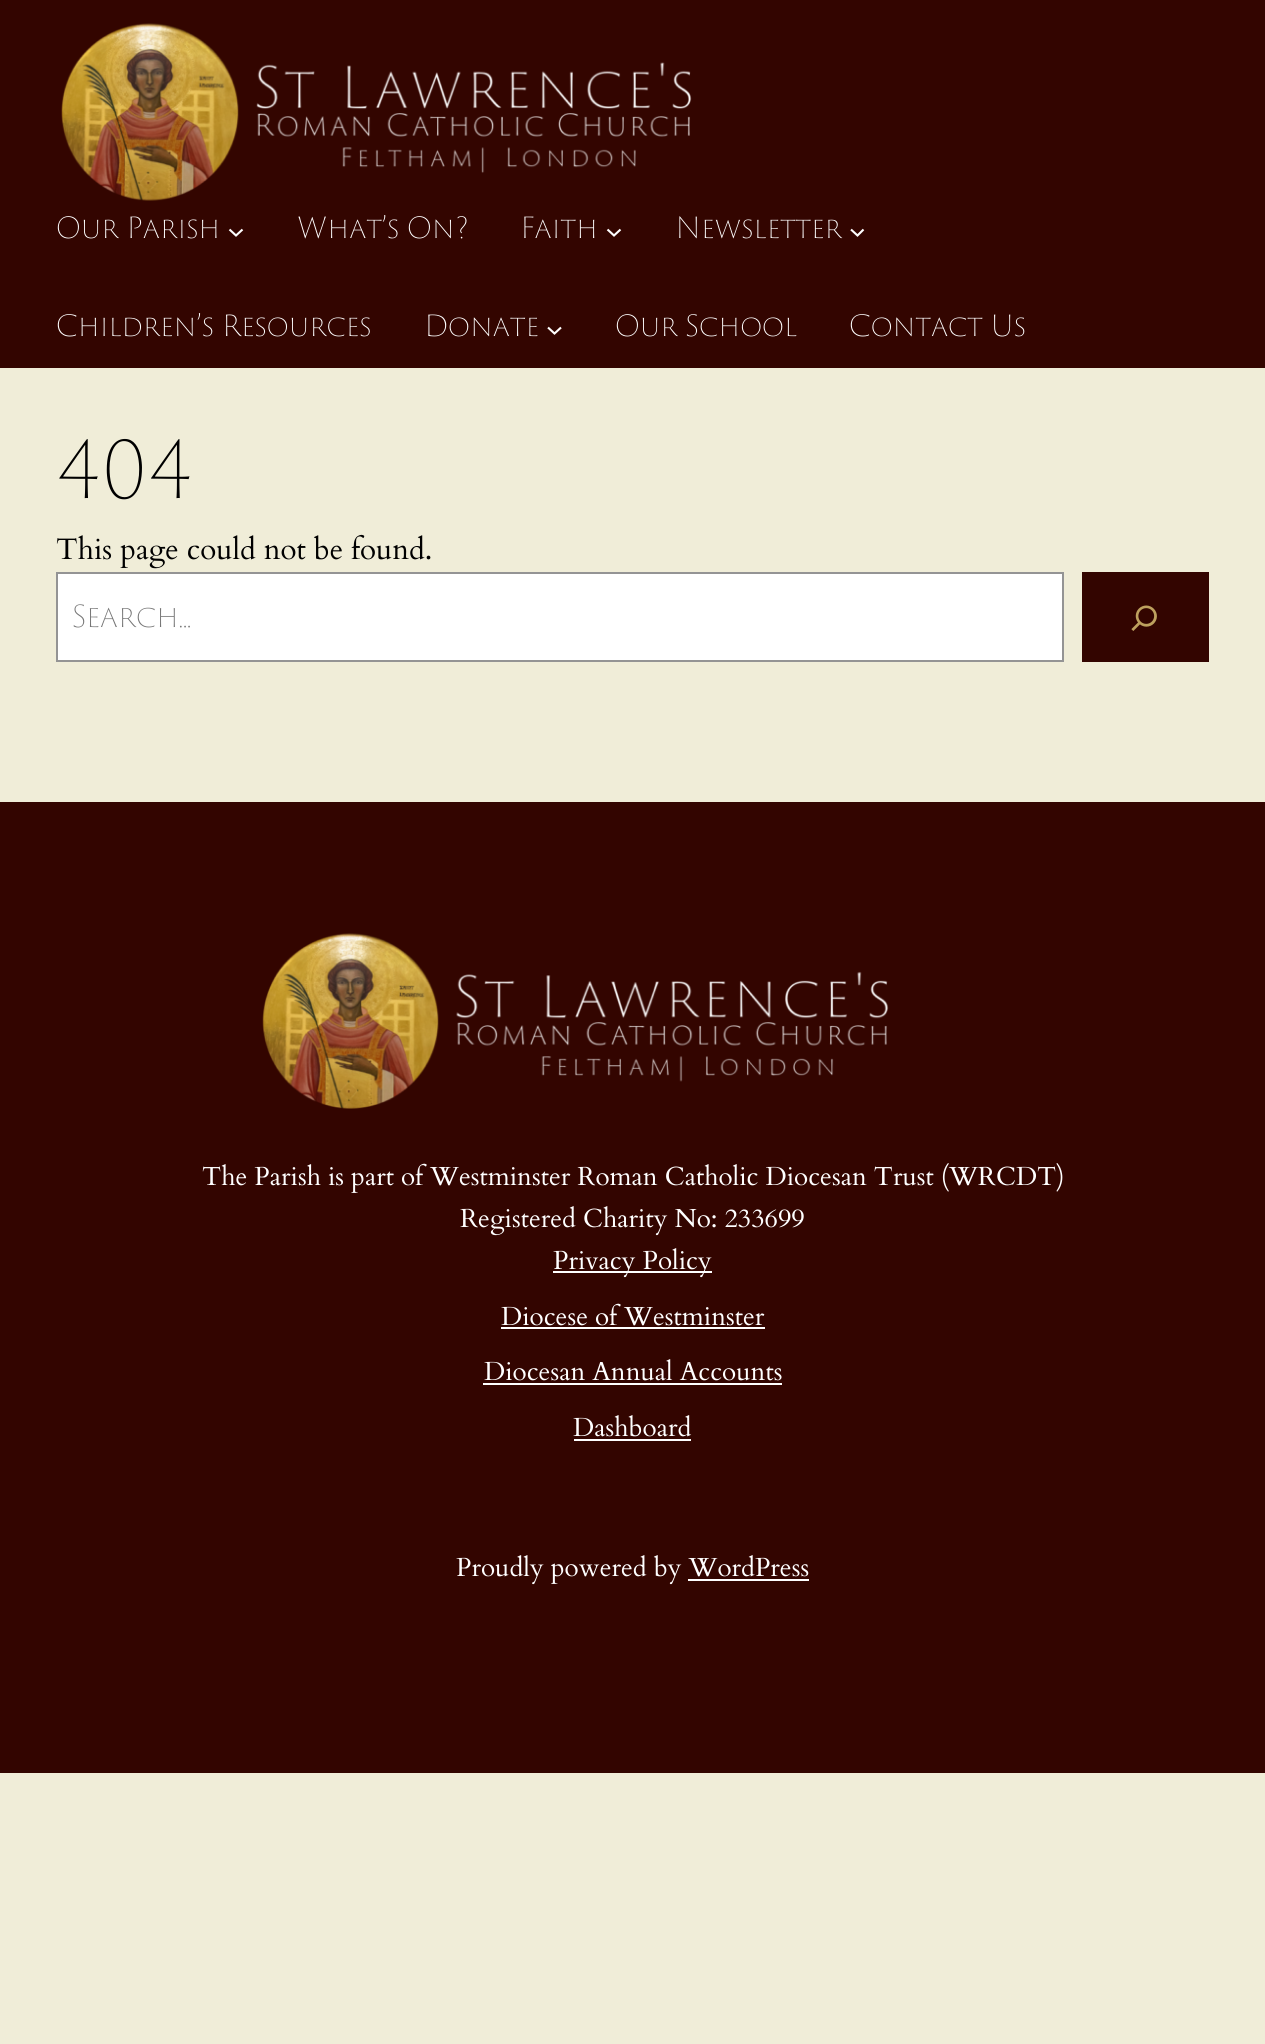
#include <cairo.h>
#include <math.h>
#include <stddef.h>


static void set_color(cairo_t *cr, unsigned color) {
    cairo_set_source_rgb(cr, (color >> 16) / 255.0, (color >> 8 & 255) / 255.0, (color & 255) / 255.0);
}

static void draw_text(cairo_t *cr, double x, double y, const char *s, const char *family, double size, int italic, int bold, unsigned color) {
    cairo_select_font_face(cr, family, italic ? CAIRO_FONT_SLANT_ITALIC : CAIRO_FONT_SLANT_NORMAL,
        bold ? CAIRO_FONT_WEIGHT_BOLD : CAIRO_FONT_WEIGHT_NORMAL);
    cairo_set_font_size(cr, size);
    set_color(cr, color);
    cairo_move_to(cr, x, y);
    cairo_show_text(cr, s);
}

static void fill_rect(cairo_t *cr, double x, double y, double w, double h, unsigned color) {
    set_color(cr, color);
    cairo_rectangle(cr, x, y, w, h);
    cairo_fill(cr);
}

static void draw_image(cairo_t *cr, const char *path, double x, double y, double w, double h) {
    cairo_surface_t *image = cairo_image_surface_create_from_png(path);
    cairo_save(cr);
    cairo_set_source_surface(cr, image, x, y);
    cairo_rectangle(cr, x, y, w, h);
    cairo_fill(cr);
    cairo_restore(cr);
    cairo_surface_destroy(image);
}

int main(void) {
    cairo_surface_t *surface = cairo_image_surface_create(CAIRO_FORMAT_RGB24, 1265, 2044);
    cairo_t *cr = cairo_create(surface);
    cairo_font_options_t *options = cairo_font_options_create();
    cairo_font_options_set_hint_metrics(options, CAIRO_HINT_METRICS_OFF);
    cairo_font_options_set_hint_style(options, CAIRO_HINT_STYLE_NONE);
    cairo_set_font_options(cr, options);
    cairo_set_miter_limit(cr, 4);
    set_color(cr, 0xF0EDD8);
    cairo_paint(cr);
    fill_rect(cr, 0, 0, 1265, 368, 0x330500);
    draw_image(cr, "assets/img1.png", 61, 23, 631, 178);
    draw_text(cr, 56, 238, "Our Parish", "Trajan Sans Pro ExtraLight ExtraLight", 28.5, 0, 0, 0xFFFFFF);
    cairo_new_path(cr);
    cairo_move_to(cr, 229.5, 229.5);
    cairo_line_to(cr, 236, 235.5);
    cairo_line_to(cr, 242.5, 229.5);
    cairo_set_line_width(cr, 2.1);
    cairo_stroke(cr);
    draw_text(cr, 297, 238, "What’s On?", "Trajan Sans Pro ExtraLight ExtraLight", 28.5, 0, 0, 0xFFFFFF);
    draw_text(cr, 520, 238, "Faith", "Trajan Sans Pro ExtraLight ExtraLight", 28.5, 0, 0, 0xFFFFFF);
    cairo_new_path(cr);
    cairo_move_to(cr, 607.5, 229.5);
    cairo_line_to(cr, 614, 235.5);
    cairo_line_to(cr, 620.5, 229.5);
    cairo_stroke(cr);
    draw_text(cr, 675, 238, "Newsletter", "Trajan Sans Pro ExtraLight ExtraLight", 28.5, 0, 0, 0xFFFFFF);
    cairo_new_path(cr);
    cairo_move_to(cr, 851, 229.5);
    cairo_line_to(cr, 857.5, 235.5);
    cairo_line_to(cr, 863.5, 229.5);
    cairo_stroke(cr);
    draw_text(cr, 56, 336, "Children’s Resources", "Trajan Sans Pro ExtraLight ExtraLight", 28.5, 0, 0, 0xFFFFFF);
    draw_text(cr, 424, 336, "Donate", "Trajan Sans Pro ExtraLight ExtraLight", 28.5, 0, 0, 0xFFFFFF);
    cairo_new_path(cr);
    cairo_move_to(cr, 548, 327.5);
    cairo_line_to(cr, 554.5, 333.5);
    cairo_line_to(cr, 561, 327.5);
    cairo_stroke(cr);
    draw_text(cr, 615, 336, "Our School", "Trajan Sans Pro ExtraLight ExtraLight", 28.5, 0, 0, 0xFFFFFF);
    draw_text(cr, 849, 336, "Contact Us", "Trajan Sans Pro ExtraLight ExtraLight", 28.5, 0, 0, 0xFFFFFF);
    draw_text(cr, 56, 498, "404", "Trajan Sans Pro ExtraLight ExtraLight", 77, 0, 0, 0x000000);
    draw_text(cr, 56, 559, "This page could not be found.", "Cardo", 29.6, 0, 0, 0x000000);
    set_color(cr, 0xFFFFFF);
    cairo_rectangle(cr, 57, 573, 1006, 88);
    cairo_fill_preserve(cr);
    set_color(cr, 0x949494);
    cairo_set_line_width(cr, 2);
    cairo_stroke(cr);
    draw_text(cr, 72, 627, "Search...", "Trajan Sans Pro ExtraLight ExtraLight", 29.6, 0, 0, 0x757575);
    fill_rect(cr, 1082, 572, 127, 90, 0x330500);
    draw_image(cr, "assets/img2.png", 1131, 605, 26, 26);
    fill_rect(cr, 0, 802, 1265, 971, 0x330500);
    draw_image(cr, "assets/img3.png", 262, 933, 627, 176);
    draw_text(cr, 202, 1185, "The Parish is part of Westminster Roman Catholic Diocesan Trust (WRCDT)", "Cardo", 26.1, 0, 0, 0xFFFFFF);
    draw_text(cr, 460, 1227, "Registered Charity No: 233699", "Cardo", 26.1, 0, 0, 0xFFFFFF);
    fill_rect(cr, 553, 1271, 159, 2, 0xFFFFFF);
    draw_text(cr, 553, 1269, "Privacy Policy", "Cardo", 26.1, 0, 0, 0xFFFFFF);
    draw_text(cr, 501, 1325, "Diocese of Westminster", "Cardo", 26.1, 0, 0, 0xFFFFFF);
    fill_rect(cr, 501, 1327, 264, 2, 0xFFFFFF);
    draw_text(cr, 484, 1380, "Diocesan Annual Accounts", "Cardo", 26.1, 0, 0, 0xFFFFFF);
    fill_rect(cr, 483, 1383, 299, 2, 0xFFFFFF);
    draw_text(cr, 573, 1436, "Dashboard", "Cardo", 26.1, 0, 0, 0xFFFFFF);
    fill_rect(cr, 574, 1439, 117, 2, 0xFFFFFF);
    draw_text(cr, 456, 1576, "Proudly powered by WordPress", "Cardo", 26.1, 0, 0, 0xFFFFFF);
    fill_rect(cr, 688, 1579, 121, 2, 0xFFFFFF);
    cairo_surface_write_to_png(surface, "output.png");
    cairo_font_options_destroy(options);
    cairo_destroy(cr);
    cairo_surface_destroy(surface);
    return 0;
}
